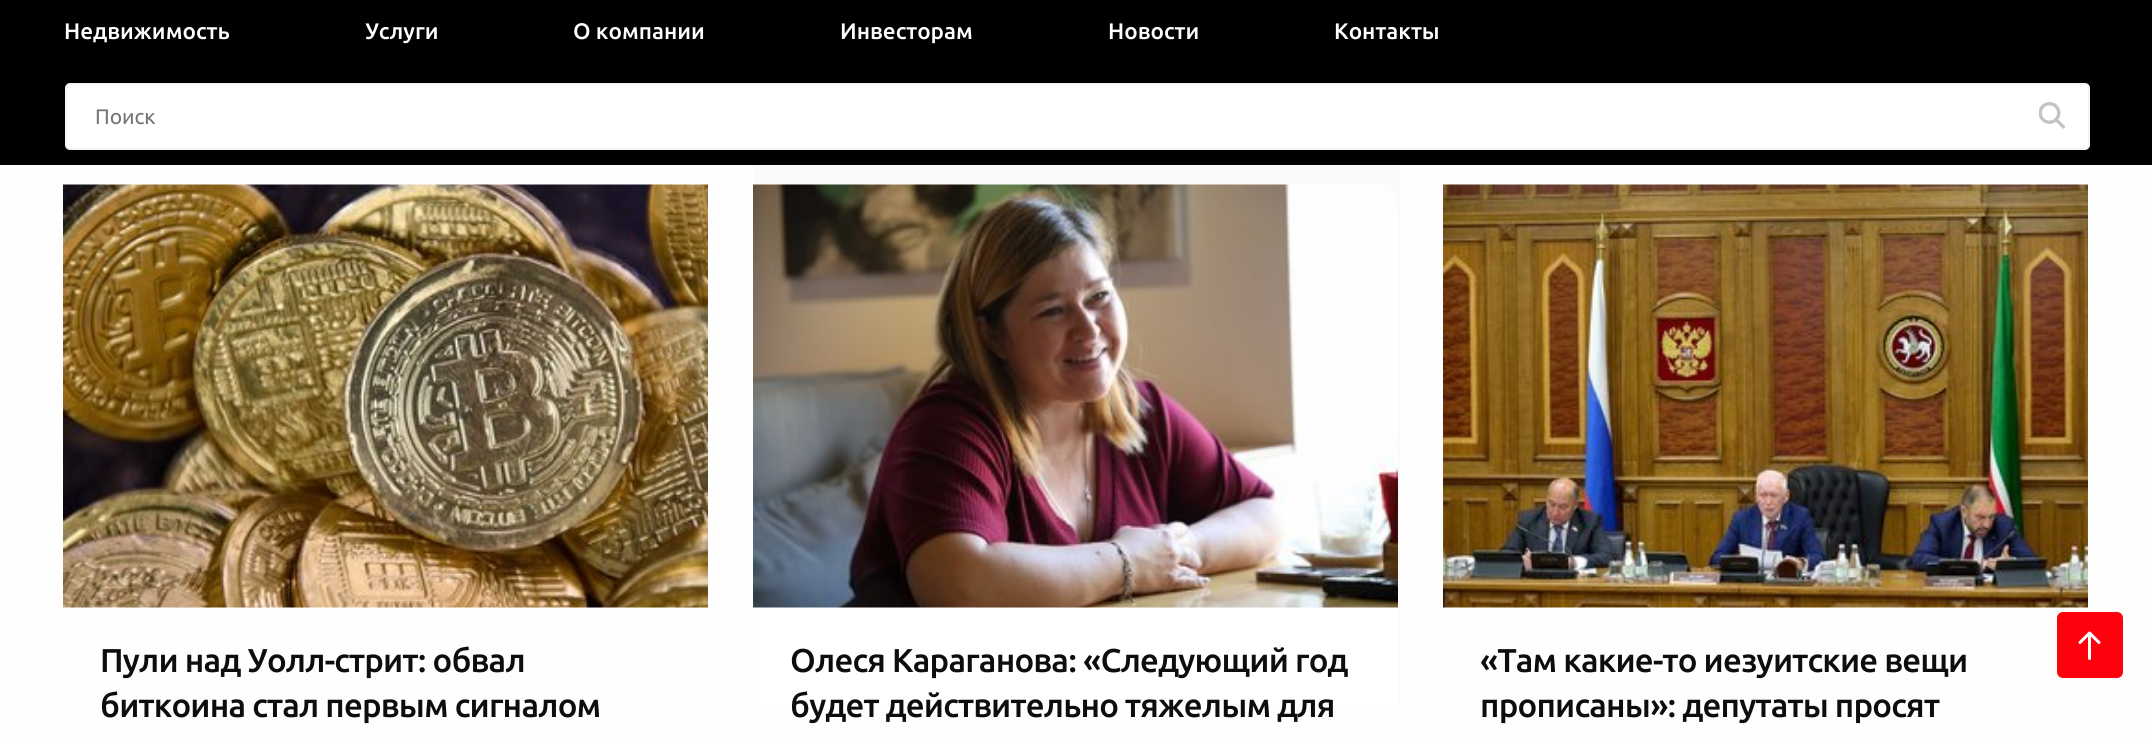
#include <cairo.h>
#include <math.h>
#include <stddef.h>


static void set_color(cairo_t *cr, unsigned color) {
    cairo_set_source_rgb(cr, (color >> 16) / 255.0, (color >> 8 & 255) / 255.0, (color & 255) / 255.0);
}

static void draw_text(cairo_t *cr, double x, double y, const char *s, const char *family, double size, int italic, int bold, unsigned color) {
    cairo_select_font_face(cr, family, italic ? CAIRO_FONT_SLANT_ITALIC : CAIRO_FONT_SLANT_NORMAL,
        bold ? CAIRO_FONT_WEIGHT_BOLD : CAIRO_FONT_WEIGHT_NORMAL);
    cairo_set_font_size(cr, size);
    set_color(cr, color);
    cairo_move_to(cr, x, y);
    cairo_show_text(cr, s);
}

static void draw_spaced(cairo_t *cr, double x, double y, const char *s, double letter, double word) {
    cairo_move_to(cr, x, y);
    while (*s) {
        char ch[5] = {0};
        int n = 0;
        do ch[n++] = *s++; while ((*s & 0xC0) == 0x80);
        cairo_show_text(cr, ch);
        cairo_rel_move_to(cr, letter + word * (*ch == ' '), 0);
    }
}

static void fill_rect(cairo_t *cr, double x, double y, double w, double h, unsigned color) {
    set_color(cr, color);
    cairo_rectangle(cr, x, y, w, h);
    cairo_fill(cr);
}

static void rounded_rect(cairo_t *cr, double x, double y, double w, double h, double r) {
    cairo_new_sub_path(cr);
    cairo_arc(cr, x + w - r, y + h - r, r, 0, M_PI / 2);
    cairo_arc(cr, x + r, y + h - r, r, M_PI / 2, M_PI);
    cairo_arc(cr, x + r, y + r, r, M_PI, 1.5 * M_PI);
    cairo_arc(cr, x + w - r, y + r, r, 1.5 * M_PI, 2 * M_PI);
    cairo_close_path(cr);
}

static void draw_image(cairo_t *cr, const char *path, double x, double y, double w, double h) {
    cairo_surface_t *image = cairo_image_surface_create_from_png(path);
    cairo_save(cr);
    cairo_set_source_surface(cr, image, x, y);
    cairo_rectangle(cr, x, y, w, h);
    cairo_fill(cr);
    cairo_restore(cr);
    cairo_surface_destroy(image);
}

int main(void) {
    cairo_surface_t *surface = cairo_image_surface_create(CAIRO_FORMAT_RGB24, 2152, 738);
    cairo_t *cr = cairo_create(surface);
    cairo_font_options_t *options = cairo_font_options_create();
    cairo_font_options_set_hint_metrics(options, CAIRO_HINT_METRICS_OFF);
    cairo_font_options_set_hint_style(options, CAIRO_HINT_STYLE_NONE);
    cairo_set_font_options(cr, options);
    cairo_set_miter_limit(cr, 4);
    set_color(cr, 0xFEFEFE);
    cairo_paint(cr);
    set_color(cr, 0xFAFAFA);
    rounded_rect(cr, 755, 35, 645, 669, 5);
    cairo_fill(cr);
    fill_rect(cr, 0, 0, 2152, 165, 0x000000);
    draw_text(cr, 64, 39, "Недвижимость", "Ubuntu Medium", 22.5, 0, 0, 0xFFFFFF);
    draw_text(cr, 365, 39, "Услуги", "Ubuntu Medium", 22.5, 0, 0, 0xFFFFFF);
    draw_text(cr, 573, 39, "О компании", "Ubuntu Medium", 22.5, 0, 0, 0xFFFFFF);
    draw_text(cr, 840, 39, "Инвесторам", "Ubuntu Medium", 22.5, 0, 0, 0xFFFFFF);
    draw_text(cr, 1108, 39, "Новости", "Ubuntu Medium", 22.5, 0, 0, 0xFFFFFF);
    draw_text(cr, 1334, 39, "Контакты", "Ubuntu Medium", 22.5, 0, 0, 0xFFFFFF);
    rounded_rect(cr, 66, 84, 2023, 65, 4);
    cairo_fill_preserve(cr);
    set_color(cr, 0xF3F3F3);
    cairo_stroke(cr);
    draw_text(cr, 95, 124, "Поиск", "Ubuntu", 21, 0, 0, 0x757575);
    draw_image(cr, "assets/img1.png", 2039, 102, 27, 27);
    draw_image(cr, "assets/img2.png", 63, 184, 645, 424);
    cairo_select_font_face(cr, "Ubuntu Medium", CAIRO_FONT_SLANT_NORMAL, CAIRO_FONT_WEIGHT_NORMAL);
    cairo_set_font_size(cr, 33);
    set_color(cr, 0x0D0D0D);
    draw_spaced(cr, 100, 672, "Пули над Уолл-стрит: обвал", -0.8, 0);
    draw_spaced(cr, 100, 717, "биткоина стал первым сигналом", -0.8, 0);
    fill_rect(cr, 755, 607, 643, 97, 0xFFFFFF);
    draw_image(cr, "assets/img3.png", 753, 184, 645, 424);
    set_color(cr, 0x0D0D0D);
    draw_spaced(cr, 790, 672, "Олеся Караганова: «Следующий год", -0.8, 0);
    draw_spaced(cr, 790, 717, "будет действительно тяжелым для", -0.8, 0);
    draw_image(cr, "assets/img4.png", 1443, 184, 645, 424);
    draw_spaced(cr, 1480, 672, "«Там какие-то иезуитские вещи", -0.8, 0);
    draw_spaced(cr, 1480, 717, "прописаны»: депутаты просят", -0.8, 0);
    draw_image(cr, "assets/img5.png", 2057, 612, 66, 66);
    cairo_surface_write_to_png(surface, "output.png");
    cairo_font_options_destroy(options);
    cairo_destroy(cr);
    cairo_surface_destroy(surface);
    return 0;
}
